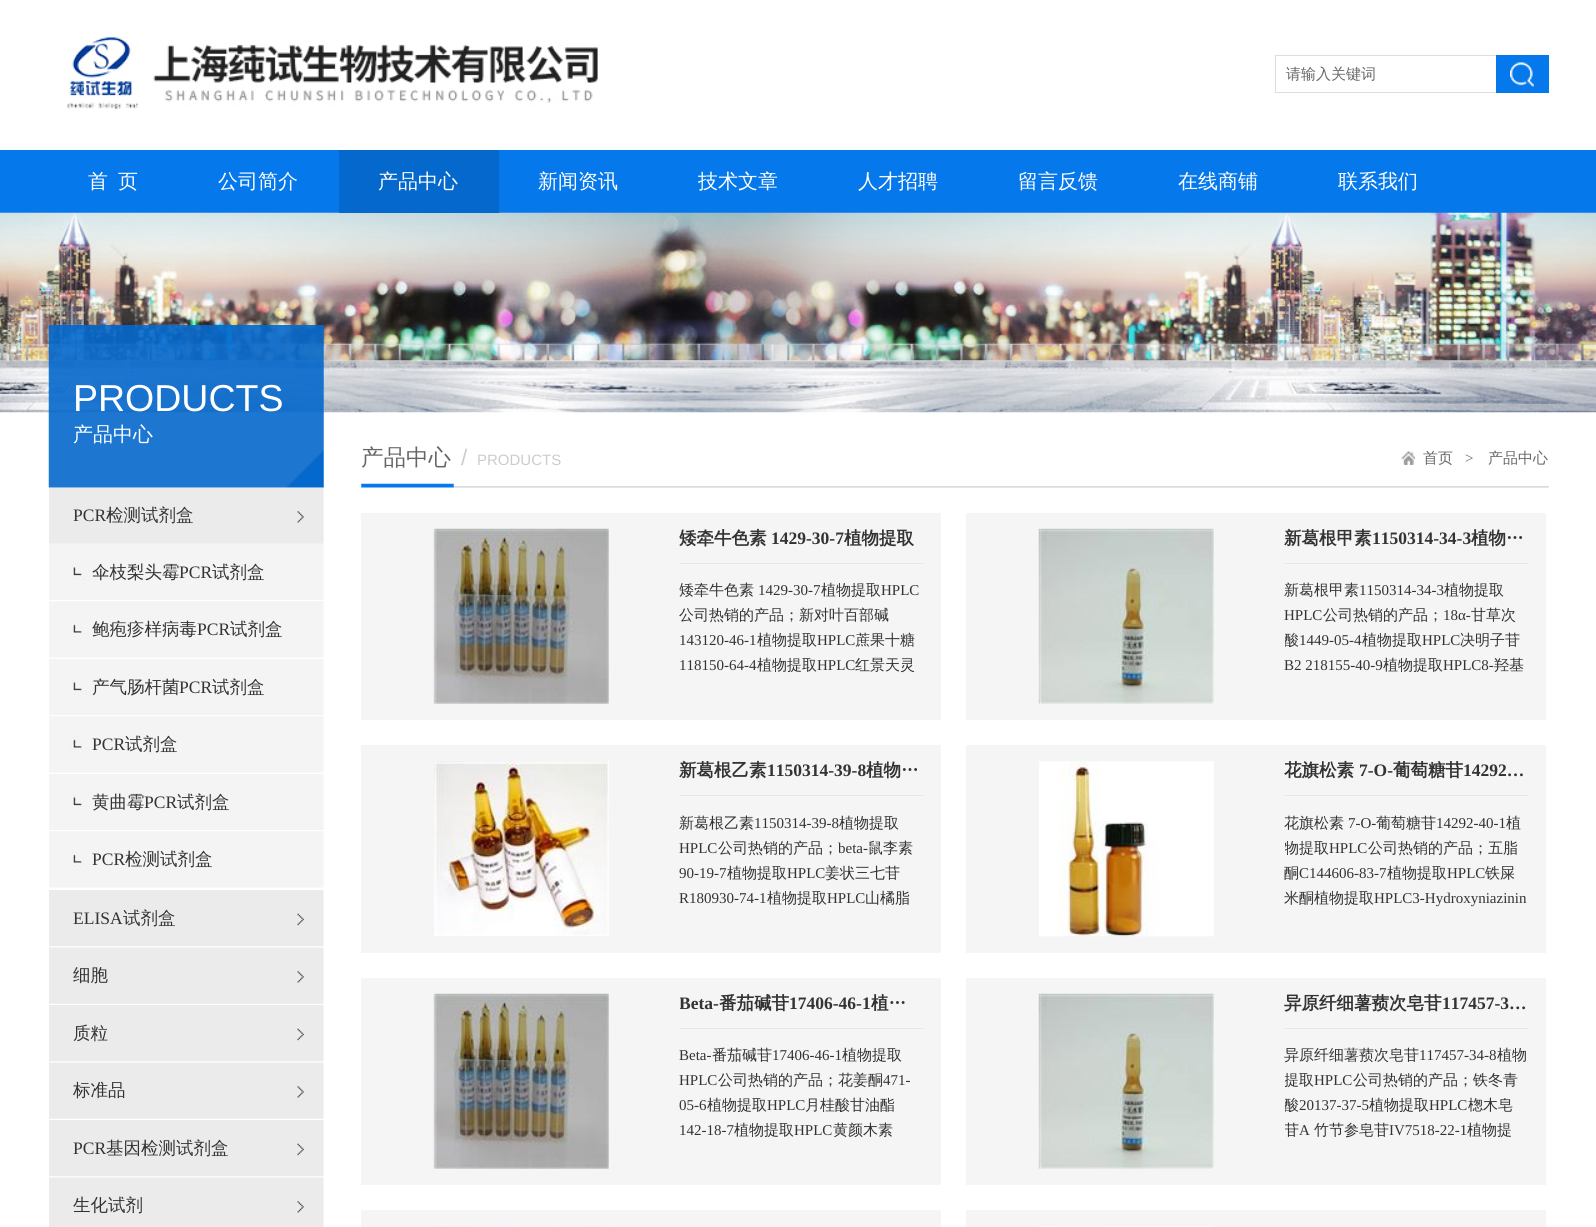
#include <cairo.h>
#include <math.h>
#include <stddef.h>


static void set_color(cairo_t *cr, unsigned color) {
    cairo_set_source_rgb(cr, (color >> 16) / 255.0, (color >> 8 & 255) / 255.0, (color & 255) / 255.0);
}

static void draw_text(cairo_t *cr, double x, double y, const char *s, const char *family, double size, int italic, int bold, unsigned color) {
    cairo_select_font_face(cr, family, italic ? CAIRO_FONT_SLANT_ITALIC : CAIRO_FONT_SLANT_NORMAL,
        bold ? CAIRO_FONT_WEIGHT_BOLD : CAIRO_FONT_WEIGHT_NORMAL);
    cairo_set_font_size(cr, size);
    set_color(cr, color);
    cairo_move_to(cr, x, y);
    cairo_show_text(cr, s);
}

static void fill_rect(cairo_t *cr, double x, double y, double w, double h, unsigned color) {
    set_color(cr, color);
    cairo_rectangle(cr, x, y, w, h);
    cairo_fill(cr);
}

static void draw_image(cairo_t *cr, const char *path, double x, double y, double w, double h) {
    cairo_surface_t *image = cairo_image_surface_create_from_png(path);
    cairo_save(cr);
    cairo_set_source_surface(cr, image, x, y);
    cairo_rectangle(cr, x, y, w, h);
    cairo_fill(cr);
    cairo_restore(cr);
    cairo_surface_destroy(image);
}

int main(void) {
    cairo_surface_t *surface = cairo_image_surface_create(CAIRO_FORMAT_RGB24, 1596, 1227);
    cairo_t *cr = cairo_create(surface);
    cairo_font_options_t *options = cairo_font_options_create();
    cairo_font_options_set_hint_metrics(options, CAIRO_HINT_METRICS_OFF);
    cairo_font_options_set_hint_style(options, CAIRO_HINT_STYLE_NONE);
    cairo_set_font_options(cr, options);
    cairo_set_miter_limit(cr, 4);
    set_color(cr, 0xFFFFFF);
    cairo_paint(cr);
    draw_image(cr, "assets/img1.png", 67, 37, 531, 72);
    cairo_rectangle(cr, 1275.5, 55.5, 222, 37);
    set_color(cr, 0xDEDEDE);
    cairo_set_line_width(cr, 1);
    cairo_stroke(cr);
    draw_text(cr, 1286, 79, "请输入关键词", "WenQuanYi Zen Hei Medium", 15, 0, 0, 0x666666);
    fill_rect(cr, 1496, 55, 53, 38, 0x0578EB);
    draw_image(cr, "assets/img2.png", 1510, 62, 24, 25);
    fill_rect(cr, 0, 150, 1596, 63, 0x0578EB);
    draw_text(cr, 88, 188, "首", "WenQuanYi Zen Hei Medium", 20, 0, 0, 0xFFFFFF);
    draw_text(cr, 118, 188, "页", "WenQuanYi Zen Hei Medium", 20, 0, 0, 0xFFFFFF);
    draw_text(cr, 218, 188, "公司简介", "WenQuanYi Zen Hei Medium", 20, 0, 0, 0xFFFFFF);
    draw_image(cr, "assets/img3.png", 0, 212, 1596, 201);
    fill_rect(cr, 339, 150, 160, 63, 0x0468CC);
    draw_text(cr, 378, 188, "产品中心", "WenQuanYi Zen Hei Medium", 20, 0, 0, 0xFFFFFF);
    draw_text(cr, 538, 188, "新闻资讯", "WenQuanYi Zen Hei Medium", 20, 0, 0, 0xFFFFFF);
    draw_text(cr, 698, 188, "技术文章", "WenQuanYi Zen Hei Medium", 20, 0, 0, 0xFFFFFF);
    draw_text(cr, 858, 188, "人才招聘", "WenQuanYi Zen Hei Medium", 20, 0, 0, 0xFFFFFF);
    draw_text(cr, 1018, 188, "留言反馈", "WenQuanYi Zen Hei Medium", 20, 0, 0, 0xFFFFFF);
    draw_text(cr, 1178, 188, "在线商铺", "WenQuanYi Zen Hei Medium", 20, 0, 0, 0xFFFFFF);
    draw_text(cr, 1338, 188, "联系我们", "WenQuanYi Zen Hei Medium", 20, 0, 0, 0xFFFFFF);
    draw_image(cr, "assets/img5.png", 49, 487, 275, 57);
    draw_image(cr, "assets/img4.png", 48, 325, 276, 163);
    draw_text(cr, 73, 411, "PRODUCTS", "Liberation Sans", 37.5, 0, 0, 0xFFFFFF);
    draw_text(cr, 73, 441, "产品中心", "WenQuanYi Zen Hei Medium", 20, 0, 0, 0xFFFFFF);
    draw_text(cr, 73, 521, "PCR", "Liberation Serif", 17.5, 0, 0, 0x333333);
    draw_text(cr, 106, 521, "检测试剂盒", "WenQuanYi Zen Hei Medium", 17.5, 0, 0, 0x333333);
    draw_image(cr, "assets/img6.png", 49, 544, 275, 56);
    draw_text(cr, 92, 578, "伞枝梨头霉", "WenQuanYi Zen Hei Medium", 17.5, 0, 0, 0x333333);
    draw_text(cr, 179, 578, "PCR", "Liberation Serif", 17.5, 0, 0, 0x333333);
    draw_text(cr, 212, 578, "试剂盒", "WenQuanYi Zen Hei Medium", 17.5, 0, 0, 0x333333);
    draw_image(cr, "assets/img7.png", 49, 601, 275, 57);
    draw_text(cr, 92, 635, "鲍疱疹样病毒", "WenQuanYi Zen Hei Medium", 17.5, 0, 0, 0x333333);
    draw_text(cr, 197, 635, "PCR", "Liberation Serif", 17.5, 0, 0, 0x333333);
    draw_text(cr, 230, 635, "试剂盒", "WenQuanYi Zen Hei Medium", 17.5, 0, 0, 0x333333);
    draw_image(cr, "assets/img6.png", 49, 659, 275, 56);
    draw_text(cr, 92, 693, "产气肠杆菌", "WenQuanYi Zen Hei Medium", 17.5, 0, 0, 0x333333);
    draw_text(cr, 179, 693, "PCR", "Liberation Serif", 17.5, 0, 0, 0x333333);
    draw_text(cr, 212, 693, "试剂盒", "WenQuanYi Zen Hei Medium", 17.5, 0, 0, 0x333333);
    draw_image(cr, "assets/img7.png", 49, 716, 275, 57);
    draw_text(cr, 92, 750, "PCR", "Liberation Serif", 17.5, 0, 0, 0x333333);
    draw_text(cr, 125, 750, "试剂盒", "WenQuanYi Zen Hei Medium", 17.5, 0, 0, 0x333333);
    draw_image(cr, "assets/img6.png", 49, 774, 275, 56);
    draw_text(cr, 92, 808, "黄曲霉", "WenQuanYi Zen Hei Medium", 17.5, 0, 0, 0x333333);
    draw_text(cr, 144, 808, "PCR", "Liberation Serif", 17.5, 0, 0, 0x333333);
    draw_text(cr, 177, 808, "试剂盒", "WenQuanYi Zen Hei Medium", 17.5, 0, 0, 0x333333);
    draw_image(cr, "assets/img7.png", 49, 831, 275, 57);
    draw_text(cr, 92, 865, "PCR", "Liberation Serif", 17.5, 0, 0, 0x333333);
    draw_text(cr, 125, 865, "检测试剂盒", "WenQuanYi Zen Hei Medium", 17.5, 0, 0, 0x333333);
    draw_image(cr, "assets/img8.png", 49, 890, 275, 57);
    draw_text(cr, 73, 924, "ELISA", "Liberation Serif", 17.5, 0, 0, 0x333333);
    draw_text(cr, 123, 924, "试剂盒", "WenQuanYi Zen Hei Medium", 17.5, 0, 0, 0x333333);
    draw_image(cr, "assets/img9.png", 49, 947, 275, 57);
    draw_text(cr, 73, 981, "细胞", "WenQuanYi Zen Hei Medium", 17.5, 0, 0, 0x333333);
    draw_image(cr, "assets/img8.png", 49, 1005, 275, 57);
    draw_text(cr, 73, 1039, "质粒", "WenQuanYi Zen Hei Medium", 17.5, 0, 0, 0x333333);
    draw_image(cr, "assets/img9.png", 49, 1062, 275, 57);
    draw_text(cr, 73, 1096, "标准品", "WenQuanYi Zen Hei Medium", 17.5, 0, 0, 0x333333);
    draw_image(cr, "assets/img8.png", 49, 1120, 275, 57);
    draw_text(cr, 73, 1154, "PCR", "Liberation Serif", 17.5, 0, 0, 0x333333);
    draw_text(cr, 106, 1154, "基因检测试剂盒", "WenQuanYi Zen Hei Medium", 17.5, 0, 0, 0x333333);
    draw_image(cr, "assets/img10.png", 49, 1177, 275, 50);
    draw_text(cr, 73, 1211, "生化试剂", "WenQuanYi Zen Hei Medium", 17.5, 0, 0, 0x333333);
    draw_image(cr, "assets/img11.png", 361, 483, 1188, 5);
    draw_text(cr, 361, 465, "产品中心", "WenQuanYi Zen Hei Medium", 22.5, 0, 0, 0x666666);
    draw_text(cr, 461, 465, "/", "Liberation Sans", 22.5, 0, 0, 0xCCCCCC);
    draw_text(cr, 477, 465, "PRODUCTS", "Liberation Sans", 15, 0, 0, 0xCCCCCC);
    draw_image(cr, "assets/img12.png", 1401, 451, 14, 14);
    draw_text(cr, 1423, 463, "首页", "WenQuanYi Zen Hei Medium", 15, 0, 0, 0x666666);
    draw_text(cr, 1465, 463, ">", "Liberation Serif", 15, 0, 0, 0x666666);
    draw_text(cr, 1488, 463, "产品中心", "WenQuanYi Zen Hei Medium", 15, 0, 0, 0x666666);
    fill_rect(cr, 361, 513, 580, 207, 0xF5F5F5);
    draw_image(cr, "assets/img13.png", 433, 528, 176, 176);
    fill_rect(cr, 680, 563, 243, 1, 0xE6E6E6);
    draw_text(cr, 679, 544, "矮牵牛色素", "WenQuanYi Zen Hei", 17.5, 0, 1, 0x333333);
    draw_text(cr, 771, 544, "1429-30-7", "Liberation Serif", 17.5, 0, 1, 0x333333);
    draw_text(cr, 844, 544, "植物提取", "WenQuanYi Zen Hei", 17.5, 0, 1, 0x333333);
    draw_text(cr, 679, 595, "矮牵牛色素", "WenQuanYi Zen Hei Medium", 15, 0, 0, 0x333333);
    draw_text(cr, 758, 595, "1429-30-7", "Liberation Serif", 15, 0, 0, 0x333333);
    draw_text(cr, 821, 595, "植物提取", "WenQuanYi Zen Hei Medium", 15, 0, 0, 0x333333);
    draw_text(cr, 881, 595, "HPLC", "Liberation Serif", 15, 0, 0, 0x333333);
    draw_text(cr, 679, 620, "公司热销的产品；新对叶百部碱", "WenQuanYi Zen Hei Medium", 15, 0, 0, 0x333333);
    draw_text(cr, 679, 645, "143120-46-1", "Liberation Serif", 15, 0, 0, 0x333333);
    draw_text(cr, 757, 645, "植物提取", "WenQuanYi Zen Hei Medium", 15, 0, 0, 0x333333);
    draw_text(cr, 817, 645, "HPLC", "Liberation Serif", 15, 0, 0, 0x333333);
    draw_text(cr, 855, 645, "蔗果十糖", "WenQuanYi Zen Hei Medium", 15, 0, 0, 0x333333);
    draw_text(cr, 679, 670, "118150-64-4", "Liberation Serif", 15, 0, 0, 0x333333);
    draw_text(cr, 757, 670, "植物提取", "WenQuanYi Zen Hei Medium", 15, 0, 0, 0x333333);
    draw_text(cr, 817, 670, "HPLC", "Liberation Serif", 15, 0, 0, 0x333333);
    draw_text(cr, 855, 670, "红景天灵", "WenQuanYi Zen Hei Medium", 15, 0, 0, 0x333333);
    fill_rect(cr, 966, 513, 580, 207, 0xF5F5F5);
    draw_image(cr, "assets/img14.png", 1038, 528, 176, 176);
    fill_rect(cr, 1285, 563, 243, 1, 0xE6E6E6);
    draw_text(cr, 1284, 544, "新葛根甲素", "WenQuanYi Zen Hei", 17.5, 0, 1, 0x333333);
    draw_text(cr, 1372, 544, "1150314-34-3", "Liberation Serif", 17.5, 0, 1, 0x333333);
    draw_text(cr, 1471, 544, "植物…", "WenQuanYi Zen Hei", 17.5, 0, 1, 0x333333);
    draw_text(cr, 1284, 595, "新葛根甲素", "WenQuanYi Zen Hei Medium", 15, 0, 0, 0x333333);
    draw_text(cr, 1359, 595, "1150314-34-3", "Liberation Serif", 15, 0, 0, 0x333333);
    draw_text(cr, 1444, 595, "植物提取", "WenQuanYi Zen Hei Medium", 15, 0, 0, 0x333333);
    draw_text(cr, 1284, 620, "HPLC", "Liberation Serif", 15, 0, 0, 0x333333);
    draw_text(cr, 1323, 620, "公司热销的产品；", "WenQuanYi Zen Hei Medium", 15, 0, 0, 0x333333);
    draw_text(cr, 1443, 620, "18α-", "Liberation Serif", 15, 0, 0, 0x333333);
    draw_text(cr, 1471, 620, "甘草次", "WenQuanYi Zen Hei Medium", 15, 0, 0, 0x333333);
    cairo_save(cr);
    cairo_rectangle(cr, 1285, 578, 243, 100);
    cairo_clip(cr);
    draw_text(cr, 1284, 645, "酸", "WenQuanYi Zen Hei Medium", 15, 0, 0, 0x333333);
    cairo_restore(cr);
    draw_text(cr, 1299, 645, "1449-05-4", "Liberation Serif", 15, 0, 0, 0x333333);
    draw_text(cr, 1362, 645, "植物提取", "WenQuanYi Zen Hei Medium", 15, 0, 0, 0x333333);
    draw_text(cr, 1422, 645, "HPLC", "Liberation Serif", 15, 0, 0, 0x333333);
    draw_text(cr, 1460, 645, "决明子苷", "WenQuanYi Zen Hei Medium", 15, 0, 0, 0x333333);
    draw_text(cr, 1284, 670, "B2 218155-40-9", "Liberation Serif", 15, 0, 0, 0x333333);
    draw_text(cr, 1383, 670, "植物提取", "WenQuanYi Zen Hei Medium", 15, 0, 0, 0x333333);
    draw_text(cr, 1443, 670, "HPLC8-", "Liberation Serif", 15, 0, 0, 0x333333);
    draw_text(cr, 1494, 670, "羟基", "WenQuanYi Zen Hei Medium", 15, 0, 0, 0x333333);
    fill_rect(cr, 361, 745, 580, 208, 0xF5F5F5);
    draw_image(cr, "assets/img15.png", 434, 761, 175, 175);
    fill_rect(cr, 680, 795, 243, 1, 0xE6E6E6);
    draw_text(cr, 679, 776, "新葛根乙素", "WenQuanYi Zen Hei", 17.5, 0, 1, 0x333333);
    draw_text(cr, 767, 776, "1150314-39-8", "Liberation Serif", 17.5, 0, 1, 0x333333);
    draw_text(cr, 866, 776, "植物…", "WenQuanYi Zen Hei", 17.5, 0, 1, 0x333333);
    draw_text(cr, 679, 828, "新葛根乙素", "WenQuanYi Zen Hei Medium", 15, 0, 0, 0x333333);
    draw_text(cr, 754, 828, "1150314-39-8", "Liberation Serif", 15, 0, 0, 0x333333);
    draw_text(cr, 839, 828, "植物提取", "WenQuanYi Zen Hei Medium", 15, 0, 0, 0x333333);
    draw_text(cr, 679, 853, "HPLC", "Liberation Serif", 15, 0, 0, 0x333333);
    draw_text(cr, 718, 853, "公司热销的产品；", "WenQuanYi Zen Hei Medium", 15, 0, 0, 0x333333);
    draw_text(cr, 838, 853, "beta-", "Liberation Serif", 15, 0, 0, 0x333333);
    draw_text(cr, 868, 853, "鼠李素", "WenQuanYi Zen Hei Medium", 15, 0, 0, 0x333333);
    draw_text(cr, 679, 878, "90-19-7", "Liberation Serif", 15, 0, 0, 0x333333);
    draw_text(cr, 727, 878, "植物提取", "WenQuanYi Zen Hei Medium", 15, 0, 0, 0x333333);
    draw_text(cr, 787, 878, "HPLC", "Liberation Serif", 15, 0, 0, 0x333333);
    draw_text(cr, 825, 878, "姜状三七苷", "WenQuanYi Zen Hei Medium", 15, 0, 0, 0x333333);
    draw_text(cr, 679, 903, "R180930-74-1", "Liberation Serif", 15, 0, 0, 0x333333);
    draw_text(cr, 767, 903, "植物提取", "WenQuanYi Zen Hei Medium", 15, 0, 0, 0x333333);
    draw_text(cr, 827, 903, "HPLC", "Liberation Serif", 15, 0, 0, 0x333333);
    draw_text(cr, 865, 903, "山橘脂", "WenQuanYi Zen Hei Medium", 15, 0, 0, 0x333333);
    fill_rect(cr, 966, 745, 580, 208, 0xF5F5F5);
    draw_image(cr, "assets/img16.png", 1039, 761, 175, 176);
    fill_rect(cr, 1285, 795, 243, 1, 0xE6E6E6);
    draw_text(cr, 1284, 776, "花旗松素", "WenQuanYi Zen Hei", 17.5, 0, 1, 0x333333);
    draw_text(cr, 1359, 776, "7-O-", "Liberation Serif", 17.5, 0, 1, 0x333333);
    draw_text(cr, 1393, 776, "葡萄糖苷", "WenQuanYi Zen Hei", 17.5, 0, 1, 0x333333);
    draw_text(cr, 1463, 776, "14292…", "Liberation Serif", 17.5, 0, 1, 0x333333);
    draw_text(cr, 1284, 828, "花旗松素", "WenQuanYi Zen Hei Medium", 15, 0, 0, 0x333333);
    draw_text(cr, 1348, 828, "7-O-", "Liberation Serif", 15, 0, 0, 0x333333);
    draw_text(cr, 1376, 828, "葡萄糖苷", "WenQuanYi Zen Hei Medium", 15, 0, 0, 0x333333);
    draw_text(cr, 1436, 828, "14292-40-1", "Liberation Serif", 15, 0, 0, 0x333333);
    draw_text(cr, 1506, 828, "植", "WenQuanYi Zen Hei Medium", 15, 0, 0, 0x333333);
    cairo_save(cr);
    cairo_rectangle(cr, 1285, 810, 243, 100);
    cairo_clip(cr);
    draw_text(cr, 1284, 853, "物提取", "WenQuanYi Zen Hei Medium", 15, 0, 0, 0x333333);
    cairo_restore(cr);
    draw_text(cr, 1329, 853, "HPLC", "Liberation Serif", 15, 0, 0, 0x333333);
    draw_text(cr, 1368, 853, "公司热销的产品；五脂", "WenQuanYi Zen Hei Medium", 15, 0, 0, 0x333333);
    draw_text(cr, 1284, 878, "酮", "WenQuanYi Zen Hei Medium", 15, 0, 0, 0x333333);
    draw_text(cr, 1299, 878, "C144606-83-7", "Liberation Serif", 15, 0, 0, 0x333333);
    draw_text(cr, 1387, 878, "植物提取", "WenQuanYi Zen Hei Medium", 15, 0, 0, 0x333333);
    draw_text(cr, 1447, 878, "HPLC", "Liberation Serif", 15, 0, 0, 0x333333);
    draw_text(cr, 1485, 878, "铁屎", "WenQuanYi Zen Hei Medium", 15, 0, 0, 0x333333);
    draw_text(cr, 1284, 903, "米酮植物提取", "WenQuanYi Zen Hei Medium", 15, 0, 0, 0x333333);
    draw_text(cr, 1374, 903, "HPLC3-Hydroxyniazinin", "Liberation Serif", 15, 0, 0, 0x333333);
    fill_rect(cr, 361, 978, 580, 207, 0xF5F5F5);
    draw_image(cr, "assets/img13.png", 433, 993, 176, 176);
    fill_rect(cr, 680, 1028, 243, 1, 0xE6E6E6);
    cairo_save(cr);
    cairo_rectangle(cr, 680, 994, 243, 34);
    cairo_clip(cr);
    draw_text(cr, 679, 1009, "Beta-", "Liberation Serif", 17.5, 0, 1, 0x333333);
    cairo_restore(cr);
    draw_text(cr, 719, 1009, "番茄碱苷", "WenQuanYi Zen Hei", 17.5, 0, 1, 0x333333);
    draw_text(cr, 789, 1009, "17406-46-1", "Liberation Serif", 17.5, 0, 1, 0x333333);
    draw_text(cr, 871, 1009, "植…", "WenQuanYi Zen Hei", 17.5, 0, 1, 0x333333);
    draw_text(cr, 679, 1060, "Beta-", "Liberation Serif", 15, 0, 0, 0x333333);
    draw_text(cr, 712, 1060, "番茄碱苷", "WenQuanYi Zen Hei Medium", 15, 0, 0, 0x333333);
    draw_text(cr, 772, 1060, "17406-46-1", "Liberation Serif", 15, 0, 0, 0x333333);
    draw_text(cr, 842, 1060, "植物提取", "WenQuanYi Zen Hei Medium", 15, 0, 0, 0x333333);
    draw_text(cr, 679, 1085, "HPLC", "Liberation Serif", 15, 0, 0, 0x333333);
    draw_text(cr, 718, 1085, "公司热销的产品；花姜酮", "WenQuanYi Zen Hei Medium", 15, 0, 0, 0x333333);
    draw_text(cr, 883, 1085, "471-", "Liberation Serif", 15, 0, 0, 0x333333);
    draw_text(cr, 679, 1110, "05-6", "Liberation Serif", 15, 0, 0, 0x333333);
    draw_text(cr, 707, 1110, "植物提取", "WenQuanYi Zen Hei Medium", 15, 0, 0, 0x333333);
    draw_text(cr, 767, 1110, "HPLC", "Liberation Serif", 15, 0, 0, 0x333333);
    draw_text(cr, 805, 1110, "月桂酸甘油酯", "WenQuanYi Zen Hei Medium", 15, 0, 0, 0x333333);
    draw_text(cr, 679, 1135, "142-18-7", "Liberation Serif", 15, 0, 0, 0x333333);
    draw_text(cr, 734, 1135, "植物提取", "WenQuanYi Zen Hei Medium", 15, 0, 0, 0x333333);
    draw_text(cr, 794, 1135, "HPLC", "Liberation Serif", 15, 0, 0, 0x333333);
    draw_text(cr, 833, 1135, "黄颜木素", "WenQuanYi Zen Hei Medium", 15, 0, 0, 0x333333);
    fill_rect(cr, 966, 978, 580, 207, 0xF5F5F5);
    draw_image(cr, "assets/img14.png", 1038, 993, 176, 176);
    fill_rect(cr, 1285, 1028, 243, 1, 0xE6E6E6);
    draw_text(cr, 1284, 1009, "异原纤细薯蓣次皂苷", "WenQuanYi Zen Hei", 17.5, 0, 1, 0x333333);
    draw_text(cr, 1442, 1009, "117457-3…", "Liberation Serif", 17.5, 0, 1, 0x333333);
    draw_text(cr, 1284, 1060, "异原纤细薯蓣次皂苷", "WenQuanYi Zen Hei Medium", 15, 0, 0, 0x333333);
    draw_text(cr, 1419, 1060, "117457-34-8", "Liberation Serif", 15, 0, 0, 0x333333);
    draw_text(cr, 1497, 1060, "植物", "WenQuanYi Zen Hei Medium", 15, 0, 0, 0x333333);
    cairo_save(cr);
    cairo_rectangle(cr, 1285, 1043, 243, 100);
    cairo_clip(cr);
    draw_text(cr, 1284, 1085, "提取", "WenQuanYi Zen Hei Medium", 15, 0, 0, 0x333333);
    cairo_restore(cr);
    draw_text(cr, 1314, 1085, "HPLC", "Liberation Serif", 15, 0, 0, 0x333333);
    draw_text(cr, 1353, 1085, "公司热销的产品；铁冬青", "WenQuanYi Zen Hei Medium", 15, 0, 0, 0x333333);
    cairo_save(cr);
    cairo_rectangle(cr, 1285, 1043, 243, 100);
    cairo_clip(cr);
    draw_text(cr, 1284, 1110, "酸", "WenQuanYi Zen Hei Medium", 15, 0, 0, 0x333333);
    cairo_restore(cr);
    draw_text(cr, 1299, 1110, "20137-37-5", "Liberation Serif", 15, 0, 0, 0x333333);
    draw_text(cr, 1369, 1110, "植物提取", "WenQuanYi Zen Hei Medium", 15, 0, 0, 0x333333);
    draw_text(cr, 1429, 1110, "HPLC", "Liberation Serif", 15, 0, 0, 0x333333);
    draw_text(cr, 1468, 1110, "楤木皂", "WenQuanYi Zen Hei Medium", 15, 0, 0, 0x333333);
    cairo_save(cr);
    cairo_rectangle(cr, 1285, 1043, 243, 100);
    cairo_clip(cr);
    draw_text(cr, 1284, 1135, "苷", "WenQuanYi Zen Hei Medium", 15, 0, 0, 0x333333);
    cairo_restore(cr);
    draw_text(cr, 1299, 1135, "A", "Liberation Serif", 15, 0, 0, 0x333333);
    draw_text(cr, 1314, 1135, "竹节参皂苷", "WenQuanYi Zen Hei Medium", 15, 0, 0, 0x333333);
    draw_text(cr, 1389, 1135, "IV7518-22-1", "Liberation Serif", 15, 0, 0, 0x333333);
    draw_text(cr, 1467, 1135, "植物提", "WenQuanYi Zen Hei Medium", 15, 0, 0, 0x333333);
    fill_rect(cr, 361, 1210, 580, 17, 0xF5F5F5);
    draw_image(cr, "assets/img17.png", 434, 1226, 175, 1);
    fill_rect(cr, 966, 1210, 580, 17, 0xF5F5F5);
    draw_image(cr, "assets/img18.png", 1039, 1226, 175, 1);
    cairo_surface_write_to_png(surface, "output.png");
    cairo_font_options_destroy(options);
    cairo_destroy(cr);
    cairo_surface_destroy(surface);
    return 0;
}
